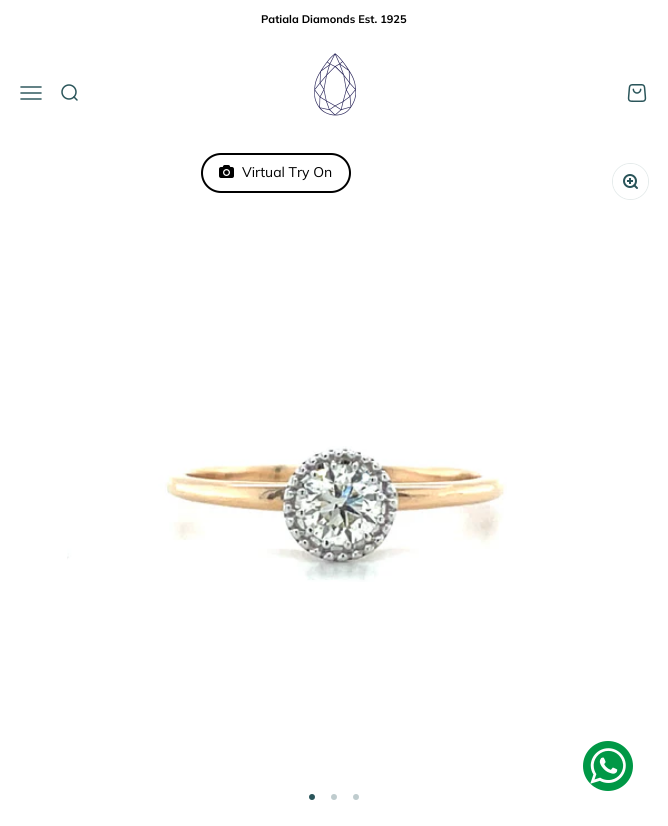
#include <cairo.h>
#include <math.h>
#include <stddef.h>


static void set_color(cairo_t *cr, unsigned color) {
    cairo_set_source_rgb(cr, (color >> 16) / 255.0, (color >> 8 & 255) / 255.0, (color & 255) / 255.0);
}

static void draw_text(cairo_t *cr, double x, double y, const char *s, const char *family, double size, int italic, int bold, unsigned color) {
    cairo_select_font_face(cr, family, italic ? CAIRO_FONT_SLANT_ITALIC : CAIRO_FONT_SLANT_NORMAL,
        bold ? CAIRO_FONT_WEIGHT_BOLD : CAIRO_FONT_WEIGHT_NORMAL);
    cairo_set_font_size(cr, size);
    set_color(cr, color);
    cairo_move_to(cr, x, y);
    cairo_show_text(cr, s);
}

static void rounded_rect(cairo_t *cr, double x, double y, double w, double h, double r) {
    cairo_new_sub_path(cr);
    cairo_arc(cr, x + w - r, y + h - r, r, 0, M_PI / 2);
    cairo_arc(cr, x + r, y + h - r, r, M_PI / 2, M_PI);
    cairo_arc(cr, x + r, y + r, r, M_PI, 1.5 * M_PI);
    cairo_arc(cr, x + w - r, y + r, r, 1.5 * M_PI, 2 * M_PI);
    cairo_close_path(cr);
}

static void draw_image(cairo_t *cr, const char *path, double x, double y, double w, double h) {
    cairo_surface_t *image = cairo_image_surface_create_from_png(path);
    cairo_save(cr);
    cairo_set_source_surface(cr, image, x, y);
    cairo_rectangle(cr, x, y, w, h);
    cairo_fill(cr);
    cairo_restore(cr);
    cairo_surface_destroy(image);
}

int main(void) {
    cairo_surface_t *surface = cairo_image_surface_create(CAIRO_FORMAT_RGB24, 668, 826);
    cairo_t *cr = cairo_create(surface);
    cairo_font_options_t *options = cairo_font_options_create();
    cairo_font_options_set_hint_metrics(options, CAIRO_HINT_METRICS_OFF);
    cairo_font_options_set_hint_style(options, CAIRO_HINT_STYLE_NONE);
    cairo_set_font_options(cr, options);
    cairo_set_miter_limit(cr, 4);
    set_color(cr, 0xFFFFFF);
    cairo_paint(cr);
    draw_text(cr, 261, 23, "Patiala Diamonds Est. 1925", "Muli", 11, 0, 1, 0x000000);
    draw_image(cr, "assets/img1.png", 20, 86, 22, 14);
    draw_image(cr, "assets/img2.png", 61, 84, 17, 17);
    draw_image(cr, "assets/img3.png", 314, 53, 42, 63);
    draw_image(cr, "assets/img4.png", 627, 84, 20, 18);
    cairo_arc(cr, 630.5, 181.5, 18, 0, 2 * M_PI);
    set_color(cr, 0xE5EBEB);
    cairo_set_line_width(cr, 1);
    cairo_stroke(cr);
    set_color(cr, 0xFFFFFF);
    cairo_arc(cr, 630.5, 181.5, 17.5, 0, 2 * M_PI);
    cairo_fill(cr);
    draw_image(cr, "assets/img5.png", 623, 174, 15, 15);
    draw_image(cr, "assets/img6.png", 67, 446, 440, 136);
    set_color(cr, 0x2A555A);
    cairo_arc(cr, 312, 797, 3, 0, 2 * M_PI);
    cairo_fill(cr);
    set_color(cr, 0xBFCCCE);
    cairo_arc(cr, 334, 797, 3, 0, 2 * M_PI);
    cairo_fill(cr);
    cairo_arc(cr, 356, 797, 3, 0, 2 * M_PI);
    cairo_fill(cr);
    rounded_rect(cr, 202, 154, 148, 38, 19);
    set_color(cr, 0x000000);
    cairo_set_line_width(cr, 2);
    cairo_stroke(cr);
    draw_image(cr, "assets/img7.png", 219, 165, 15, 13);
    draw_text(cr, 242, 177, "Virtual Try On", "Muli", 14, 0, 0, 0x000000);
    draw_image(cr, "assets/img8.png", 583, 741, 50, 50);
    cairo_surface_write_to_png(surface, "output.png");
    cairo_font_options_destroy(options);
    cairo_destroy(cr);
    cairo_surface_destroy(surface);
    return 0;
}
